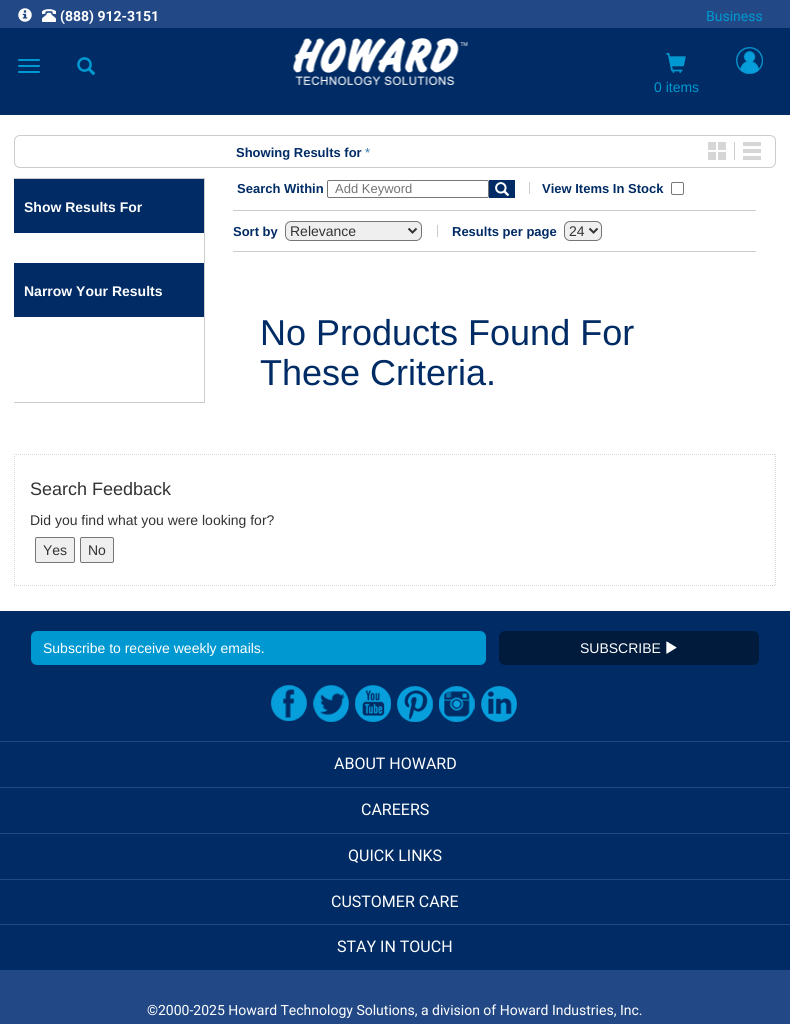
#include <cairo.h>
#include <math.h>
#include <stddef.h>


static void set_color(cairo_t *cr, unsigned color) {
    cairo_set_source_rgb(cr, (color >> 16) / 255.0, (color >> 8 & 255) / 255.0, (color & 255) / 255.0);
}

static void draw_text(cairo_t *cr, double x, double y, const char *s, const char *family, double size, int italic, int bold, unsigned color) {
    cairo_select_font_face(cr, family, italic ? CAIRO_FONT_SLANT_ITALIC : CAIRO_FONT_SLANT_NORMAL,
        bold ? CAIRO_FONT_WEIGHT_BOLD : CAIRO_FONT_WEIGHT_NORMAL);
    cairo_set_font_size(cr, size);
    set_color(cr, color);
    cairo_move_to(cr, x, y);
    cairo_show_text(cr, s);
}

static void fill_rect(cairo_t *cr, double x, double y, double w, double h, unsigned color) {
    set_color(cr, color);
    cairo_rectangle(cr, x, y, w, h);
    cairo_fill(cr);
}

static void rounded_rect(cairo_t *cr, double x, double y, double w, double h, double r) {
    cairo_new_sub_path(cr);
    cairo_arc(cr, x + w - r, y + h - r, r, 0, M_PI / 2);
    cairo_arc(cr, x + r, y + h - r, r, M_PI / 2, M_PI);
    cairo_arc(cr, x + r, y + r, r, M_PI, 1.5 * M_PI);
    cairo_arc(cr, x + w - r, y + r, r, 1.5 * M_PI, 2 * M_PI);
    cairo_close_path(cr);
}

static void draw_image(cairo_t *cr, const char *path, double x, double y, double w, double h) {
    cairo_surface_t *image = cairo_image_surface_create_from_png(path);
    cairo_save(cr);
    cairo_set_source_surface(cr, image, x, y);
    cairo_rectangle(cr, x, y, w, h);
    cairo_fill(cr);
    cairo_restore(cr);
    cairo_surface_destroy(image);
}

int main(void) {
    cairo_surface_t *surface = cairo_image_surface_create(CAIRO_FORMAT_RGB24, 790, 1024);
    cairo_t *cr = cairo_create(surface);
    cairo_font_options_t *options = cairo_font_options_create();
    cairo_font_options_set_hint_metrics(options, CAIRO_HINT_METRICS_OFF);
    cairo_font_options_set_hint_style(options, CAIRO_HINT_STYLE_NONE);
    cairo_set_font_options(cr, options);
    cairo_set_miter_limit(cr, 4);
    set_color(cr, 0xFFFFFF);
    cairo_paint(cr);
    fill_rect(cr, 0, 0, 790, 28, 0x224985);
    draw_image(cr, "assets/img1.png", 18, 8, 14, 14);
    draw_image(cr, "assets/img2.png", 42, 9, 14, 13);
    draw_text(cr, 60, 21, "(888) 912-3151", "Roboto", 14, 0, 1, 0xFFFFFF);
    draw_text(cr, 706, 21, "Business", "Roboto", 14, 0, 0, 0x0098D1);
    fill_rect(cr, 0, 28, 790, 87, 0x002B64);
    set_color(cr, 0x0098D1);
    rounded_rect(cr, 18, 59, 22, 2, 1);
    cairo_fill(cr);
    rounded_rect(cr, 18, 65, 22, 2, 1);
    cairo_fill(cr);
    rounded_rect(cr, 18, 71, 22, 2, 1);
    cairo_fill(cr);
    draw_image(cr, "assets/img3.png", 77, 57, 19, 18);
    draw_image(cr, "assets/img4.png", 293, 38, 175, 47);
    draw_image(cr, "assets/img5.png", 736, 47, 27, 27);
    draw_image(cr, "assets/img6.png", 666, 53, 20, 20);
    draw_text(cr, 654, 92, "0 items", "Liberation Sans", 14, 0, 0, 0x0098D1);
    rounded_rect(cr, 14.5, 135.5, 761, 32, 5.5);
    set_color(cr, 0xCCCCCC);
    cairo_set_line_width(cr, 1);
    cairo_stroke(cr);
    draw_text(cr, 236, 157, "Showing Results for", "Liberation Sans", 13, 0, 1, 0x002B64);
    draw_text(cr, 365, 157, "*", "Liberation Sans", 13, 0, 0, 0x337AB7);
    fill_rect(cr, 734, 142, 1, 18, 0xCCCCCC);
    draw_image(cr, "assets/img7.png", 708, 142, 18, 18);
    draw_image(cr, "assets/img8.png", 743, 142, 18, 18);
    fill_rect(cr, 14, 178, 191, 1, 0xCCCCCC);
    fill_rect(cr, 204, 178, 1, 224, 0xCCCCCC);
    fill_rect(cr, 14, 179, 190, 54, 0x002B64);
    draw_text(cr, 24, 212, "Show Results For", "Liberation Sans", 14, 0, 1, 0xFFFFFF);
    fill_rect(cr, 14, 263, 190, 54, 0x002B64);
    draw_text(cr, 24, 296, "Narrow Your Results", "Liberation Sans", 14, 0, 1, 0xFFFFFF);
    draw_text(cr, 237, 193, "Search Within", "Liberation Sans", 13, 0, 1, 0x002B64);
    rounded_rect(cr, 327.5, 180.5, 161, 17, 1.5);
    set_color(cr, 0x767676);
    cairo_stroke(cr);
    draw_text(cr, 335, 193, "Add Keyword", "Liberation Sans", 13, 0, 0, 0x757575);
    fill_rect(cr, 489, 180, 26, 18, 0x002B64);
    draw_image(cr, "assets/img9.png", 495, 182, 15, 14);
    fill_rect(cr, 529, 182, 1, 12, 0xCCCCCC);
    draw_text(cr, 542, 193, "View Items In Stock", "Liberation Sans", 13, 0, 1, 0x002B64);
    rounded_rect(cr, 671.5, 182.5, 12, 12, 1.5);
    set_color(cr, 0x767676);
    cairo_stroke(cr);
    fill_rect(cr, 233, 210, 523, 1, 0xCCCCCC);
    fill_rect(cr, 233, 251, 523, 1, 0xCCCCCC);
    draw_text(cr, 233, 236, "Sort by", "Liberation Sans", 13, 0, 1, 0x002B64);
    set_color(cr, 0xEFEFEF);
    rounded_rect(cr, 285.5, 221.5, 136, 19, 5.5);
    cairo_fill_preserve(cr);
    set_color(cr, 0x767676);
    cairo_stroke(cr);
    cairo_new_path(cr);
    cairo_move_to(cr, 408.5, 228.5);
    cairo_line_to(cr, 412.5, 232.5);
    cairo_line_to(cr, 416.5, 228.5);
    set_color(cr, 0x333333);
    cairo_set_line_width(cr, 2);
    cairo_stroke(cr);
    draw_text(cr, 290, 236, "Relevance", "Liberation Sans", 14, 0, 0, 0x333333);
    fill_rect(cr, 437, 225, 1, 12, 0xCCCCCC);
    draw_text(cr, 452, 236, "Results per page", "Liberation Sans", 13, 0, 1, 0x002B64);
    set_color(cr, 0xEFEFEF);
    rounded_rect(cr, 564.5, 221.5, 37, 19, 5.5);
    cairo_fill_preserve(cr);
    set_color(cr, 0x767676);
    cairo_set_line_width(cr, 1);
    cairo_stroke(cr);
    cairo_new_path(cr);
    cairo_move_to(cr, 589.5, 228.5);
    cairo_line_to(cr, 593.5, 232.5);
    cairo_line_to(cr, 597.5, 228.5);
    set_color(cr, 0x333333);
    cairo_set_line_width(cr, 2);
    cairo_stroke(cr);
    draw_text(cr, 569, 236, "24", "Liberation Sans", 14, 0, 0, 0x333333);
    draw_text(cr, 260, 345, "No Products Found For", "Liberation Sans", 36, 0, 0, 0x002B64);
    draw_text(cr, 260, 385, "These Criteria.", "Liberation Sans", 36, 0, 0, 0x002B64);
    fill_rect(cr, 14, 402, 191, 1, 0xCCCCCC);
    cairo_new_path(cr);
    cairo_move_to(cr, 14, 454.5);
    cairo_line_to(cr, 776, 454.5);
    set_color(cr, 0xD7D7D7);
    cairo_set_line_width(cr, 1);
    cairo_set_dash(cr, (double[]){1, 1}, 2, 0);
    cairo_stroke(cr);
    cairo_new_path(cr);
    cairo_move_to(cr, 775.5, 454);
    cairo_line_to(cr, 775.5, 586);
    cairo_stroke(cr);
    cairo_new_path(cr);
    cairo_move_to(cr, 14, 585.5);
    cairo_line_to(cr, 776, 585.5);
    cairo_stroke(cr);
    cairo_new_path(cr);
    cairo_move_to(cr, 14.5, 454);
    cairo_line_to(cr, 14.5, 586);
    cairo_stroke(cr);
    draw_text(cr, 30, 495, "Search Feedback", "Liberation Sans", 18, 0, 0, 0x333333);
    draw_text(cr, 30, 525, "Did you find what you were looking for?", "Liberation Sans", 14, 0, 0, 0x333333);
    set_color(cr, 0xEFEFEF);
    rounded_rect(cr, 35.5, 537.5, 39, 25, 1.5);
    cairo_fill_preserve(cr);
    set_color(cr, 0x767676);
    cairo_set_dash(cr, NULL, 0, 0);
    cairo_stroke(cr);
    draw_text(cr, 43, 555, "Yes", "Liberation Sans", 14, 0, 0, 0x333333);
    set_color(cr, 0xEFEFEF);
    rounded_rect(cr, 80.5, 537.5, 33, 25, 1.5);
    cairo_fill_preserve(cr);
    set_color(cr, 0x767676);
    cairo_stroke(cr);
    draw_text(cr, 88, 555, "No", "Liberation Sans", 14, 0, 0, 0x333333);
    fill_rect(cr, 0, 611, 790, 359, 0x002B64);
    set_color(cr, 0x0098D1);
    rounded_rect(cr, 31, 631, 455, 34, 6);
    cairo_fill(cr);
    draw_text(cr, 43, 653, "Subscribe to receive weekly emails.", "Liberation Sans", 14, 0, 0, 0xFFFFFF);
    set_color(cr, 0x011B3D);
    rounded_rect(cr, 499, 631, 260, 34, 6);
    cairo_fill(cr);
    draw_text(cr, 580, 653, "SUBSCRIBE", "Liberation Sans", 14, 0, 0, 0xFFFFFF);
    draw_image(cr, "assets/img10.png", 666, 641, 11, 13);
    draw_image(cr, "assets/img11.png", 271, 685, 36, 36);
    draw_image(cr, "assets/img12.png", 313, 685, 36, 37);
    draw_image(cr, "assets/img13.png", 355, 685, 36, 37);
    draw_image(cr, "assets/img14.png", 397, 686, 36, 36);
    draw_image(cr, "assets/img15.png", 439, 686, 36, 36);
    draw_image(cr, "assets/img16.png", 481, 686, 36, 36);
    fill_rect(cr, 0, 741, 790, 1, 0x224985);
    draw_text(cr, 334, 769, "ABOUT HOWARD", "Roboto", 16, 0, 0, 0xFFFFFF);
    fill_rect(cr, 0, 787, 790, 1, 0x224985);
    draw_text(cr, 361, 815, "CAREERS", "Roboto", 16, 0, 0, 0xFFFFFF);
    fill_rect(cr, 0, 833, 790, 1, 0x224985);
    draw_text(cr, 348, 861, "QUICK LINKS", "Roboto", 16, 0, 0, 0xFFFFFF);
    fill_rect(cr, 0, 879, 790, 1, 0x224985);
    draw_text(cr, 331, 907, "CUSTOMER CARE", "Roboto", 16, 0, 0, 0xFFFFFF);
    fill_rect(cr, 0, 924, 790, 1, 0x224985);
    draw_text(cr, 337, 952, "STAY IN TOUCH", "Roboto", 16, 0, 0, 0xFFFFFF);
    fill_rect(cr, 0, 970, 790, 54, 0x224985);
    draw_text(cr, 147, 1015, "©2000-2025 Howard Technology Solutions, a division of Howard Industries, Inc.", "Roboto", 14, 0, 0, 0xFFFFFF);
    cairo_surface_write_to_png(surface, "output.png");
    cairo_font_options_destroy(options);
    cairo_destroy(cr);
    cairo_surface_destroy(surface);
    return 0;
}
